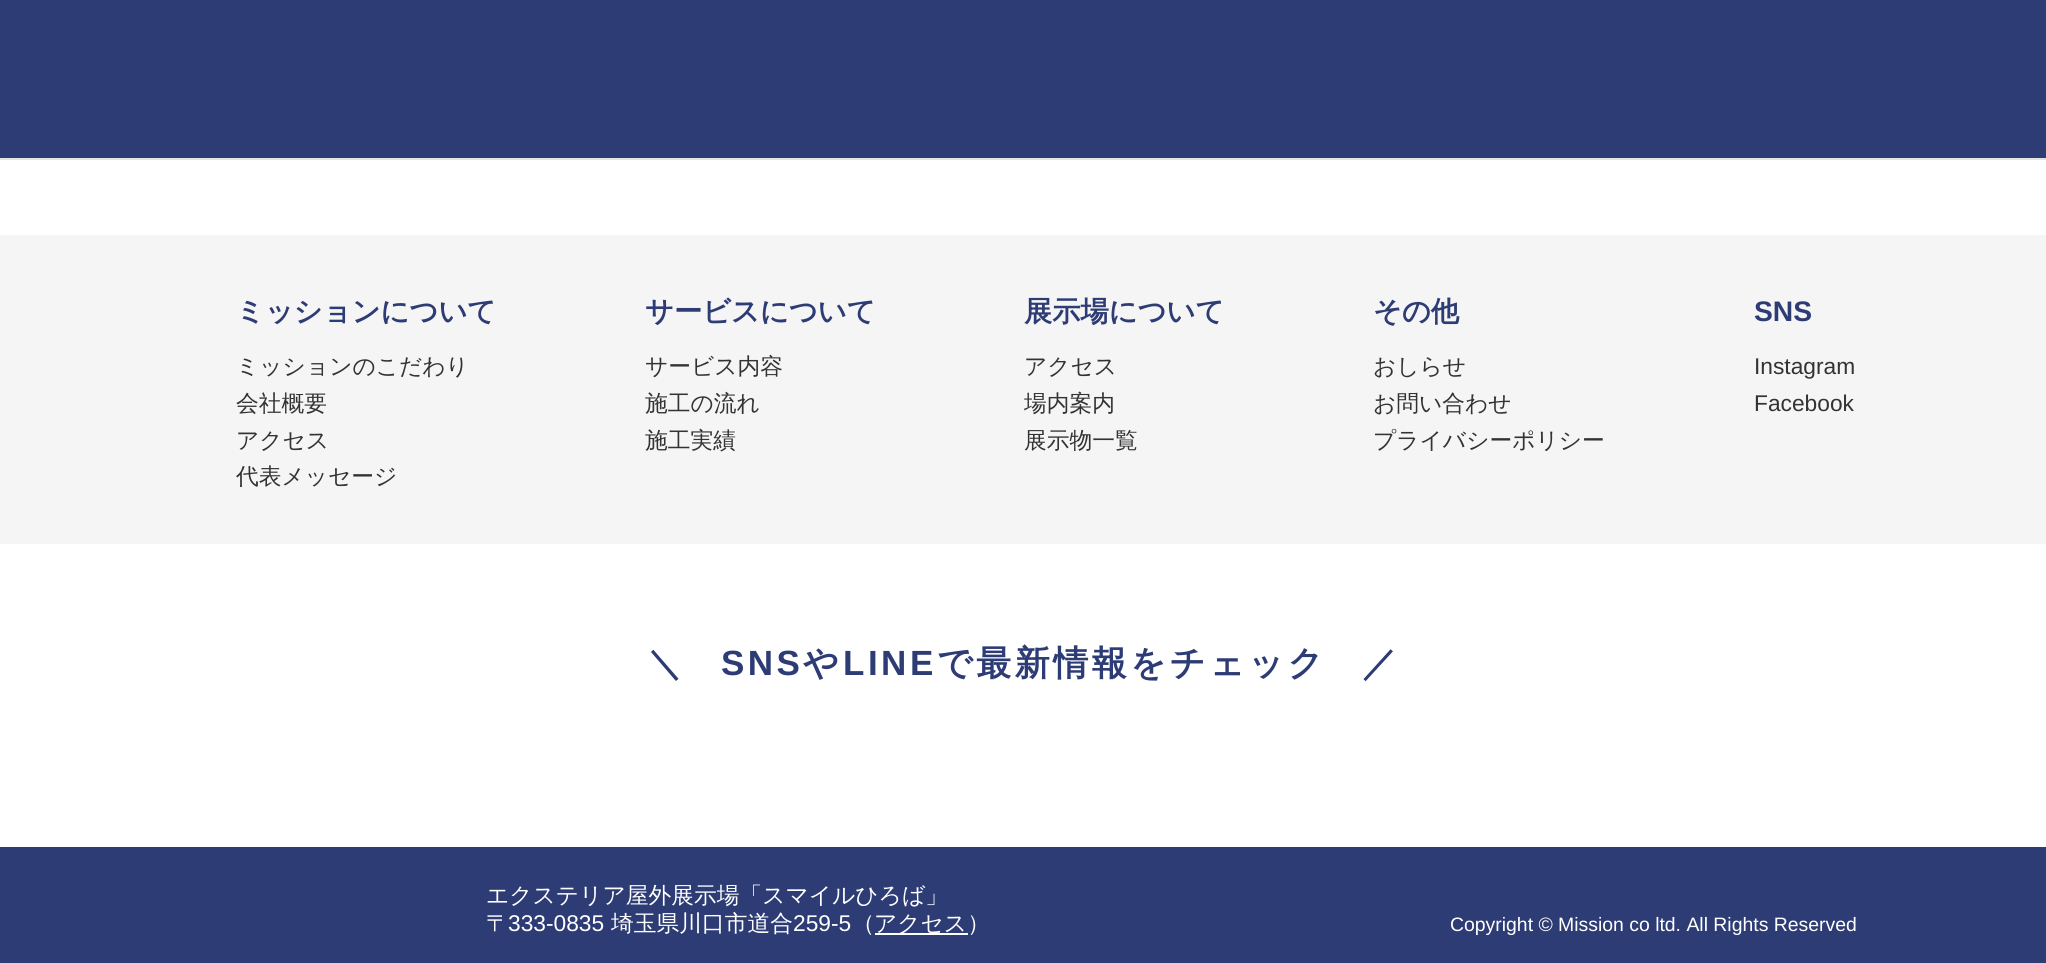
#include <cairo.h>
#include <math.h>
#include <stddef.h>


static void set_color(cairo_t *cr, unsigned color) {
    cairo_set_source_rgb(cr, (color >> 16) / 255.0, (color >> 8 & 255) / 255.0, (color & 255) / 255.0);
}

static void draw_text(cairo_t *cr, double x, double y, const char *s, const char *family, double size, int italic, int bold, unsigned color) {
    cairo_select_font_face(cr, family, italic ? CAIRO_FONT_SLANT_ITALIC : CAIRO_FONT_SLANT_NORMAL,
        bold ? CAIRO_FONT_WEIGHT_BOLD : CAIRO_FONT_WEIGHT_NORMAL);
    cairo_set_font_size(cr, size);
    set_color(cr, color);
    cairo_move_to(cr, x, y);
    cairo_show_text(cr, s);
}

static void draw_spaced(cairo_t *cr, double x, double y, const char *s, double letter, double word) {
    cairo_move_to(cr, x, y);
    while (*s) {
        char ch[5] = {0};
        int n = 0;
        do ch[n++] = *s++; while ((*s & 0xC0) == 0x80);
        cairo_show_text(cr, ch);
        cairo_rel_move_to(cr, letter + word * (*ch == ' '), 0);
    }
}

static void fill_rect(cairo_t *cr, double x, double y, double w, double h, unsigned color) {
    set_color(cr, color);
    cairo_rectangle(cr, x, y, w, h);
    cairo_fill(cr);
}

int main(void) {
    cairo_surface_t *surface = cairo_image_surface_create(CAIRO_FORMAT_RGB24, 2046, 963);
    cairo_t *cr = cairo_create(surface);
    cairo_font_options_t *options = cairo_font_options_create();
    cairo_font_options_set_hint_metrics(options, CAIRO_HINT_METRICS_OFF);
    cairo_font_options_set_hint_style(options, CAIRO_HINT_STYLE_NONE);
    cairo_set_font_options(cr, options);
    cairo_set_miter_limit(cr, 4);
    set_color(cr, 0xFFFFFF);
    cairo_paint(cr);
    fill_rect(cr, 0, 0, 2046, 158, 0x2E3C75);
    fill_rect(cr, 0, 158, 2046, 2, 0xE3E3E3);
    fill_rect(cr, 0, 235, 2046, 309, 0xF5F5F5);
    draw_text(cr, 236, 321, "ミッションについて", "WenQuanYi Zen Hei", 28.25, 0, 1, 0x2E3C75);
    draw_text(cr, 236, 374, "ミッションのこだわり", "WenQuanYi Zen Hei Medium", 22.75, 0, 0, 0x333333);
    draw_text(cr, 236, 411, "会社概要", "WenQuanYi Zen Hei Medium", 22.75, 0, 0, 0x333333);
    draw_text(cr, 236, 448, "アクセス", "WenQuanYi Zen Hei Medium", 22.75, 0, 0, 0x333333);
    draw_text(cr, 236, 484, "代表メッセージ", "WenQuanYi Zen Hei Medium", 22.75, 0, 0, 0x333333);
    draw_text(cr, 645, 321, "サービスについて", "WenQuanYi Zen Hei", 28.25, 0, 1, 0x2E3C75);
    draw_text(cr, 645, 374, "サービス内容", "WenQuanYi Zen Hei Medium", 22.75, 0, 0, 0x333333);
    draw_text(cr, 645, 411, "施工の流れ", "WenQuanYi Zen Hei Medium", 22.75, 0, 0, 0x333333);
    draw_text(cr, 645, 448, "施工実績", "WenQuanYi Zen Hei Medium", 22.75, 0, 0, 0x333333);
    draw_text(cr, 1024, 321, "展示場について", "WenQuanYi Zen Hei", 28.25, 0, 1, 0x2E3C75);
    draw_text(cr, 1024, 374, "アクセス", "WenQuanYi Zen Hei Medium", 22.75, 0, 0, 0x333333);
    draw_text(cr, 1024, 411, "場内案内", "WenQuanYi Zen Hei Medium", 22.75, 0, 0, 0x333333);
    draw_text(cr, 1024, 448, "展示物一覧", "WenQuanYi Zen Hei Medium", 22.75, 0, 0, 0x333333);
    draw_text(cr, 1373, 321, "その他", "WenQuanYi Zen Hei", 28.25, 0, 1, 0x2E3C75);
    draw_text(cr, 1373, 374, "おしらせ", "WenQuanYi Zen Hei Medium", 22.75, 0, 0, 0x333333);
    draw_text(cr, 1373, 411, "お問い合わせ", "WenQuanYi Zen Hei Medium", 22.75, 0, 0, 0x333333);
    draw_text(cr, 1373, 448, "プライバシーポリシー", "WenQuanYi Zen Hei Medium", 22.75, 0, 0, 0x333333);
    draw_text(cr, 1754, 321, "SNS", "Liberation Sans", 28.25, 0, 1, 0x2E3C75);
    draw_text(cr, 1754, 374, "Instagram", "Liberation Sans", 22.75, 0, 0, 0x333333);
    draw_text(cr, 1754, 411, "Facebook", "Liberation Sans", 22.75, 0, 0, 0x333333);
    cairo_select_font_face(cr, "WenQuanYi Zen Hei", CAIRO_FONT_SLANT_NORMAL, CAIRO_FONT_WEIGHT_BOLD);
    cairo_set_font_size(cr, 35);
    set_color(cr, 0x2E3C75);
    draw_spaced(cr, 647, 675, "＼", 3.5, 0);
    cairo_select_font_face(cr, "Liberation Sans", CAIRO_FONT_SLANT_NORMAL, CAIRO_FONT_WEIGHT_BOLD);
    draw_spaced(cr, 721, 675, "SNS", 3.5, 0);
    cairo_select_font_face(cr, "WenQuanYi Zen Hei", CAIRO_FONT_SLANT_NORMAL, CAIRO_FONT_WEIGHT_BOLD);
    draw_spaced(cr, 803, 675, "や", 3.5, 0);
    cairo_select_font_face(cr, "Liberation Sans", CAIRO_FONT_SLANT_NORMAL, CAIRO_FONT_WEIGHT_BOLD);
    draw_spaced(cr, 843, 675, "LINE", 3.5, 0);
    cairo_select_font_face(cr, "WenQuanYi Zen Hei", CAIRO_FONT_SLANT_NORMAL, CAIRO_FONT_WEIGHT_BOLD);
    draw_spaced(cr, 937, 675, "で最新情報をチェック", 3.5, 0);
    draw_spaced(cr, 1362, 675, "／", 3.5, 0);
    fill_rect(cr, 0, 847, 2046, 116, 0x2E3C75);
    draw_text(cr, 486, 903, "エクステリア屋外展示場「スマイルひろば」", "WenQuanYi Zen Hei Medium", 22.75, 0, 0, 0xFFFFFF);
    draw_text(cr, 486, 931, "〒", "WenQuanYi Zen Hei Medium", 22.75, 0, 0, 0xFFFFFF);
    draw_text(cr, 508, 931, "333-0835", "Liberation Sans", 22.75, 0, 0, 0xFFFFFF);
    draw_text(cr, 611, 931, "埼玉県川口市道合", "WenQuanYi Zen Hei Medium", 22.75, 0, 0, 0xFFFFFF);
    draw_text(cr, 793, 931, "259-5", "Liberation Sans", 22.75, 0, 0, 0xFFFFFF);
    draw_text(cr, 852, 931, "（", "WenQuanYi Zen Hei Medium", 22.75, 0, 0, 0xFFFFFF);
    fill_rect(cr, 875, 933, 93, 2, 0xFFFFFF);
    draw_text(cr, 874, 931, "アクセス）", "WenQuanYi Zen Hei Medium", 22.75, 0, 0, 0xFFFFFF);
    draw_text(cr, 1450, 931, "Copyright © Mission co ltd. All Rights Reserved", "Liberation Sans", 19.4, 0, 0, 0xFFFFFF);
    cairo_surface_write_to_png(surface, "output.png");
    cairo_font_options_destroy(options);
    cairo_destroy(cr);
    cairo_surface_destroy(surface);
    return 0;
}
